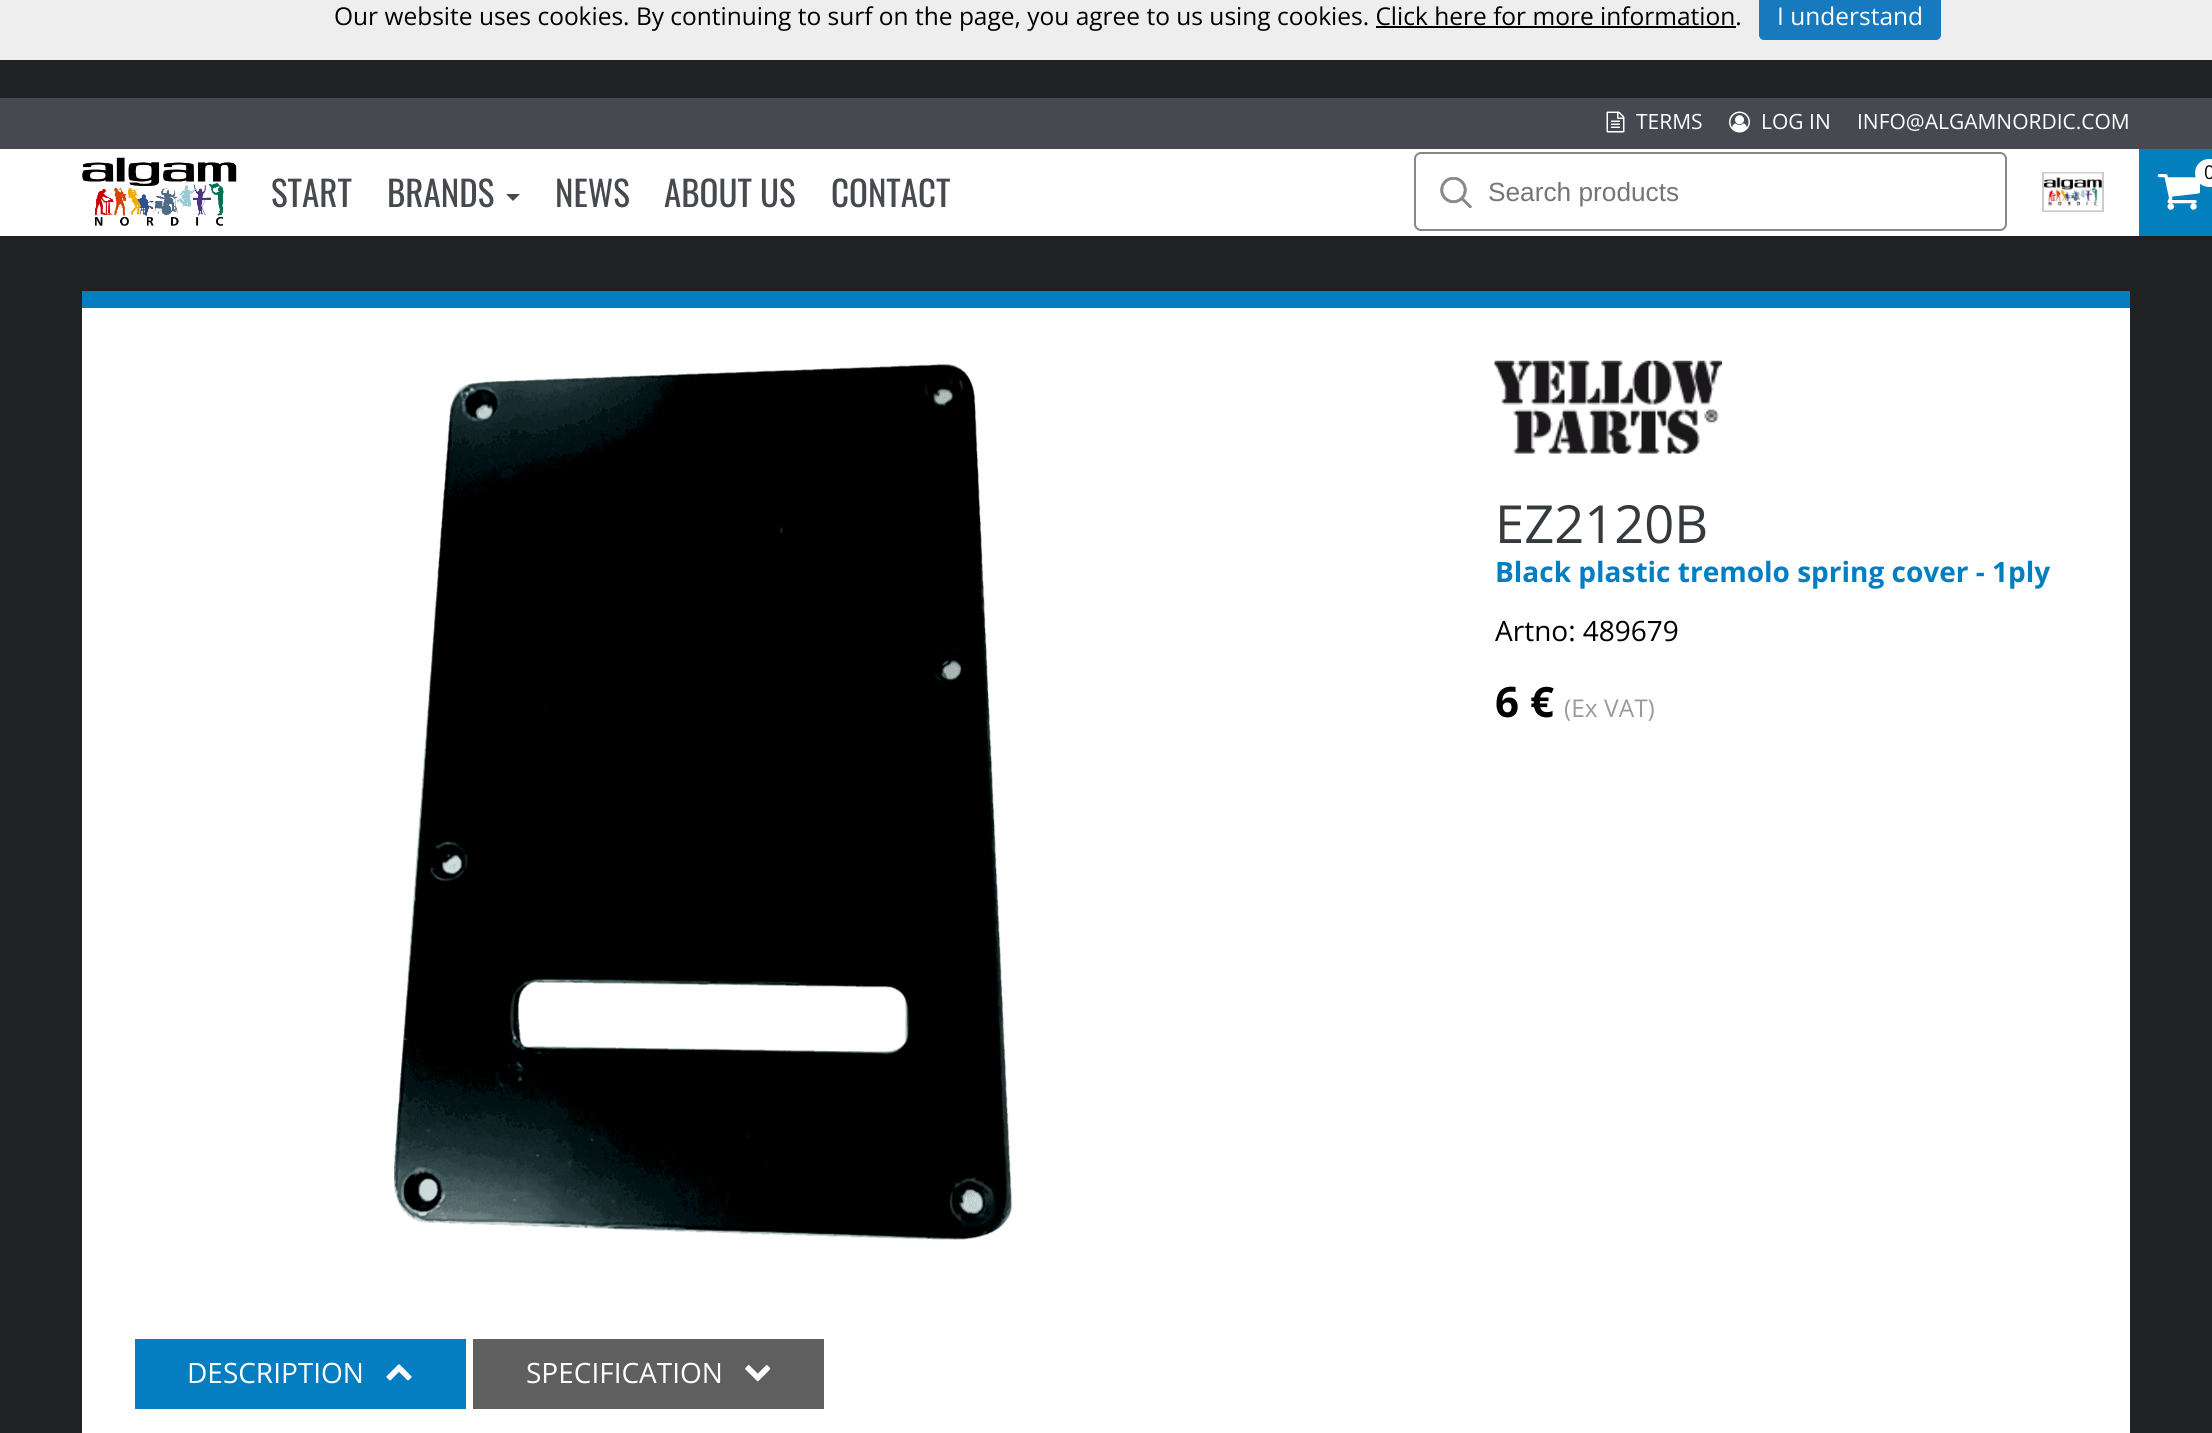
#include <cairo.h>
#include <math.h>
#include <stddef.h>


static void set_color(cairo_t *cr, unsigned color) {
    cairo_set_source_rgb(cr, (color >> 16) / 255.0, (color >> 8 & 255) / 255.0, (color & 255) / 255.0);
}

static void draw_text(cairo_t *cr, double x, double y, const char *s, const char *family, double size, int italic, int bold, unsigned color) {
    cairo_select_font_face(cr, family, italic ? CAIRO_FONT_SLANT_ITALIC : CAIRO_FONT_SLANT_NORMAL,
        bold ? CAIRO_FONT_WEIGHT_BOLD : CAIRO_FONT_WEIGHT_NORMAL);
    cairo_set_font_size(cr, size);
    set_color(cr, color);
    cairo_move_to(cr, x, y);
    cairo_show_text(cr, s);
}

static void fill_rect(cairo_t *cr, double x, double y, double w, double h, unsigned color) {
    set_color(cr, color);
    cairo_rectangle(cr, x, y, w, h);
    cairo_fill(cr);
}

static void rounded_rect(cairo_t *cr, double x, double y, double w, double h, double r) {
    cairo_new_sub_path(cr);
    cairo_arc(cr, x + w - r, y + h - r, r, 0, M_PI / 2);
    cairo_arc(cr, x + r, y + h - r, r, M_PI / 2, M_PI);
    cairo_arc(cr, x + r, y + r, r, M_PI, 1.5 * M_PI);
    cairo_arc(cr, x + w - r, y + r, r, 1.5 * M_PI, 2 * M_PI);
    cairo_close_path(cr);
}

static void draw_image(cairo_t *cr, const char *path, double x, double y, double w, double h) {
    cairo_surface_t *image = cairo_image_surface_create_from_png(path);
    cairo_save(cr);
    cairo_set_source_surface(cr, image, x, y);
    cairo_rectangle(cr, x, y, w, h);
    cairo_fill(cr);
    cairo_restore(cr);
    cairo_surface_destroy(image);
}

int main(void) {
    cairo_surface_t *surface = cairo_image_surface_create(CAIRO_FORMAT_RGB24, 2212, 1433);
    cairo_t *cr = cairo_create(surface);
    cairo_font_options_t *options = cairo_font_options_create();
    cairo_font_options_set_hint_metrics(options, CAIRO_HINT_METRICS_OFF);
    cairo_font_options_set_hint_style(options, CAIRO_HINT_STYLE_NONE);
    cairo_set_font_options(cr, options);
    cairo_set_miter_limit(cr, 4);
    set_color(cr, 0x202123);
    cairo_paint(cr);
    fill_rect(cr, 0, 0, 2212, 60, 0xEEEEEE);
    draw_text(cr, 334, 25, "Our website uses cookies. By continuing to surf on the page, you agree to us using cookies. Click here for more information.", "Open Sans", 24.5, 0, 0, 0x000000);
    fill_rect(cr, 1376, 26, 360, 2, 0x000000);
    set_color(cr, 0x1779BE);
    rounded_rect(cr, 1759, -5, 182, 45, 5);
    cairo_fill(cr);
    draw_text(cr, 1777, 25, "I understand", "Open Sans", 24.5, 0, 0, 0xFFFFFF);
    fill_rect(cr, 0, 98, 2212, 51, 0x464950);
    draw_image(cr, "assets/img1.png", 1606, 111, 19, 22);
    draw_text(cr, 1636, 129, "TERMS", "Open Sans", 21, 0, 0, 0xFFFFFF);
    draw_image(cr, "assets/img2.png", 1729, 111, 21, 22);
    draw_text(cr, 1761, 129, "LOG IN", "Open Sans", 21, 0, 0, 0xFFFFFF);
    draw_text(cr, 1857, 129, "INFO@ALGAMNORDIC.COM", "Open Sans", 21, 0, 0, 0xFFFFFF);
    fill_rect(cr, 0, 149, 2139, 87, 0xFFFFFF);
    draw_image(cr, "assets/img3.png", 82, 157, 155, 69);
    draw_text(cr, 271, 207, "START", "Oswald", 35, 0, 0, 0x46494E);
    draw_text(cr, 387, 207, "BRANDS", "Oswald", 35, 0, 0, 0x46494E);
    cairo_new_path(cr);
    cairo_move_to(cr, 506, 194);
    cairo_line_to(cr, 520, 194);
    cairo_line_to(cr, 513, 201);
    cairo_close_path(cr);
    cairo_fill(cr);
    draw_text(cr, 555, 207, "NEWS", "Oswald", 35, 0, 0, 0x46494E);
    draw_text(cr, 664, 207, "ABOUT US", "Oswald", 35, 0, 0, 0x46494E);
    draw_text(cr, 831, 207, "CONTACT", "Oswald", 35, 0, 0, 0x46494E);
    rounded_rect(cr, 1415, 153, 591, 77, 6);
    set_color(cr, 0x878787);
    cairo_stroke(cr);
    draw_image(cr, "assets/img4.png", 1440, 177, 32, 31);
    draw_text(cr, 1488, 201, "Search products", "Liberation Sans", 26.25, 0, 0, 0x757575);
    cairo_rectangle(cr, 2043, 173, 60, 38);
    set_color(cr, 0xCCCCCC);
    cairo_stroke(cr);
    draw_image(cr, "assets/img5.png", 2044, 173, 58, 38);
    fill_rect(cr, 2139, 149, 73, 87, 0x0280BD);
    draw_image(cr, "assets/img6.png", 2157, 174, 43, 36);
    set_color(cr, 0xFFFFFF);
    rounded_rect(cr, 2195, 159, 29, 28, 14);
    cairo_fill(cr);
    draw_text(cr, 2204, 179, "0", "Open Sans", 19, 0, 0, 0x000000);
    fill_rect(cr, 82, 308, 2048, 1125, 0xFFFFFF);
    fill_rect(cr, 82, 291, 2048, 17, 0x047EC1);
    draw_image(cr, "assets/img7.png", 394, 364, 618, 876);
    draw_image(cr, "assets/img8.png", 1494, 360, 228, 94);
    draw_text(cr, 1495, 543, "EZ2120B", "Open Sans", 52.5, 0, 0, 0x353A3E);
    draw_text(cr, 1495, 582, "Black plastic tremolo spring cover - 1ply", "Open Sans", 28, 0, 1, 0x047EC1);
    draw_text(cr, 1495, 641, "Artno: 489679", "Open Sans", 28, 0, 0, 0x000000);
    draw_text(cr, 1495, 717, "6 €", "Open Sans", 42, 0, 1, 0x000000);
    draw_text(cr, 1564, 717, "(Ex VAT)", "Open Sans", 24.5, 0, 0, 0x9B9B9B);
    fill_rect(cr, 135, 1339, 331, 70, 0x047EC1);
    draw_text(cr, 187, 1383, "DESCRIPTION", "Open Sans", 28, 0, 0, 0xFFFFFF);
    draw_image(cr, "assets/img9.png", 386, 1364, 26, 17);
    fill_rect(cr, 473, 1339, 351, 70, 0x5F5F5F);
    draw_text(cr, 526, 1383, "SPECIFICATION", "Open Sans", 28, 0, 0, 0xFFFFFF);
    draw_image(cr, "assets/img10.png", 745, 1365, 26, 17);
    cairo_surface_write_to_png(surface, "output.png");
    cairo_font_options_destroy(options);
    cairo_destroy(cr);
    cairo_surface_destroy(surface);
    return 0;
}
